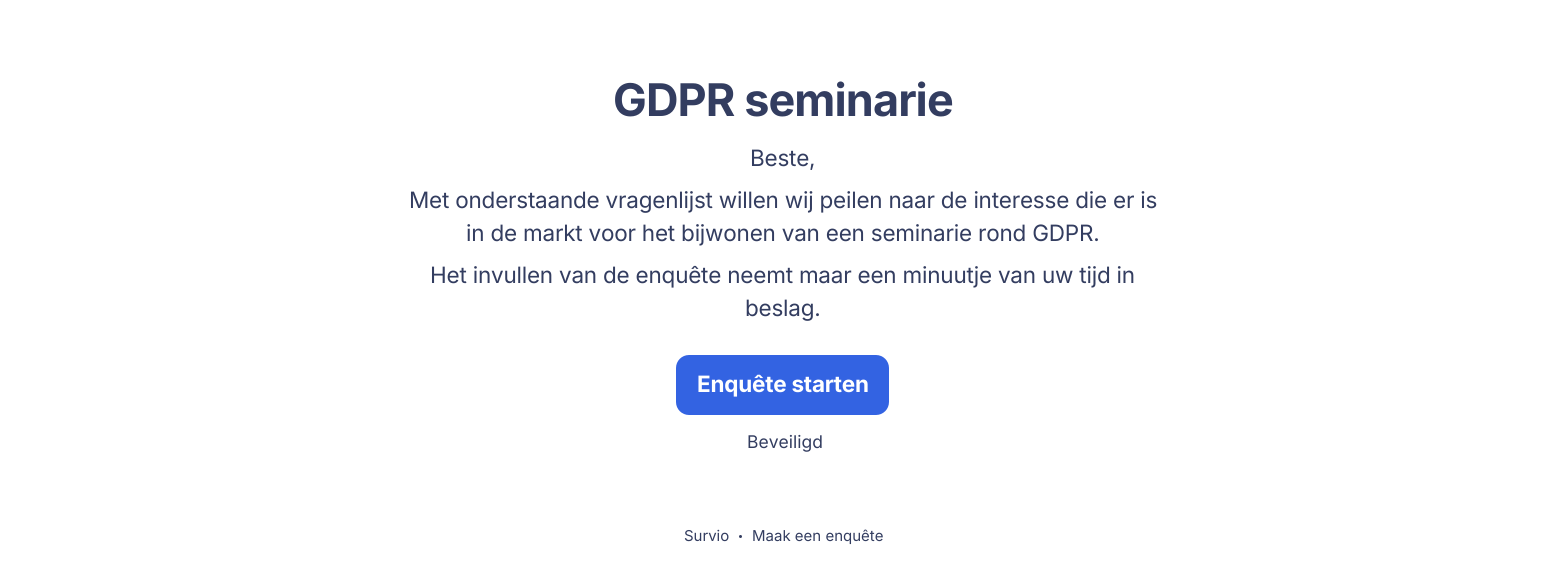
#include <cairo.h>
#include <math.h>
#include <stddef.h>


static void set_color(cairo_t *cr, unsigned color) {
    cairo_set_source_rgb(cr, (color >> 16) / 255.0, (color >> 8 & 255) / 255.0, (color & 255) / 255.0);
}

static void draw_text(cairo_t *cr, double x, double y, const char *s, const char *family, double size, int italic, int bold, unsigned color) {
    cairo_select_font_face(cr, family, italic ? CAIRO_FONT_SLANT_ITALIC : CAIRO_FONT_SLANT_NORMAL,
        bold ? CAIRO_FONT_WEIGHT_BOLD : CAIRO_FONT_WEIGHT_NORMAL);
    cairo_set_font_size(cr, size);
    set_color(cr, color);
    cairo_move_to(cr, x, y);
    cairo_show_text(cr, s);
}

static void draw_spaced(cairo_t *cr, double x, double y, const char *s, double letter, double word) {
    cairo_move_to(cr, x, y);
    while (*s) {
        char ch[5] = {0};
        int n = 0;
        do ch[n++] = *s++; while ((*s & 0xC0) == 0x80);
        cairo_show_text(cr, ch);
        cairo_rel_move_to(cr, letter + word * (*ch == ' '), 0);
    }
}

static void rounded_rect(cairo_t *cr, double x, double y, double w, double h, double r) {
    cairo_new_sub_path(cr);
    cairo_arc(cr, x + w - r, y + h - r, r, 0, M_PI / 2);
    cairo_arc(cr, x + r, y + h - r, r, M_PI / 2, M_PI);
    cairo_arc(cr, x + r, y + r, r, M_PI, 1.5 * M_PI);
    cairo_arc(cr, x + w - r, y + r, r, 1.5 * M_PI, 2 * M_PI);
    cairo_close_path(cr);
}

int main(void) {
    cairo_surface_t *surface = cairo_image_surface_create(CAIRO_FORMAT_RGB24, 1565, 566);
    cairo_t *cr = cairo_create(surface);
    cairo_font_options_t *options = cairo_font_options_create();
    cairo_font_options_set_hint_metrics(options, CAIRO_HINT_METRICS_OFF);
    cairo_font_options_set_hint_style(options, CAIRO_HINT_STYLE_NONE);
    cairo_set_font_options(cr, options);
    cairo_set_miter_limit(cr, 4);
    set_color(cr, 0xFFFFFF);
    cairo_paint(cr);
    cairo_select_font_face(cr, "Inter", CAIRO_FONT_SLANT_NORMAL, CAIRO_FONT_WEIGHT_BOLD);
    cairo_set_font_size(cr, 45);
    set_color(cr, 0x333D60);
    draw_spaced(cr, 613, 116, "GDPR seminarie", -0.9, 0);
    cairo_select_font_face(cr, "Inter", CAIRO_FONT_SLANT_NORMAL, CAIRO_FONT_WEIGHT_NORMAL);
    cairo_set_font_size(cr, 22.5);
    draw_spaced(cr, 750, 166, "Beste,", -0.22, 0);
    draw_spaced(cr, 409, 208, "Met onderstaande vragenlijst willen wij peilen naar de interesse die er is", -0.22, 0);
    draw_spaced(cr, 466, 241, "in de markt voor het bijwonen van een seminarie rond GDPR.", -0.22, 0);
    draw_spaced(cr, 430, 283, "Het invullen van de enquête neemt maar een minuutje van uw tijd in", -0.22, 0);
    draw_spaced(cr, 745, 316, "beslag.", -0.22, 0);
    set_color(cr, 0x3363E2);
    rounded_rect(cr, 676, 355, 213, 60, 13);
    cairo_fill(cr);
    cairo_select_font_face(cr, "Inter", CAIRO_FONT_SLANT_NORMAL, CAIRO_FONT_WEIGHT_BOLD);
    set_color(cr, 0xFFFFFF);
    draw_spaced(cr, 697, 392, "Enquête starten", -0.22, 0);
    draw_text(cr, 747, 448, "Beveiligd", "Inter", 17.5, 0, 0, 0x333D60);
    draw_text(cr, 684, 541, "Survio", "Inter", 15, 0, 0, 0x333D60);
    cairo_new_path(cr);
    cairo_arc(cr, 740.5, 536.5, 1.5, 0, 2 * M_PI);
    cairo_fill(cr);
    draw_text(cr, 752, 541, "Maak een enquête", "Inter", 15, 0, 0, 0x333D60);
    cairo_surface_write_to_png(surface, "output.png");
    cairo_font_options_destroy(options);
    cairo_destroy(cr);
    cairo_surface_destroy(surface);
    return 0;
}
